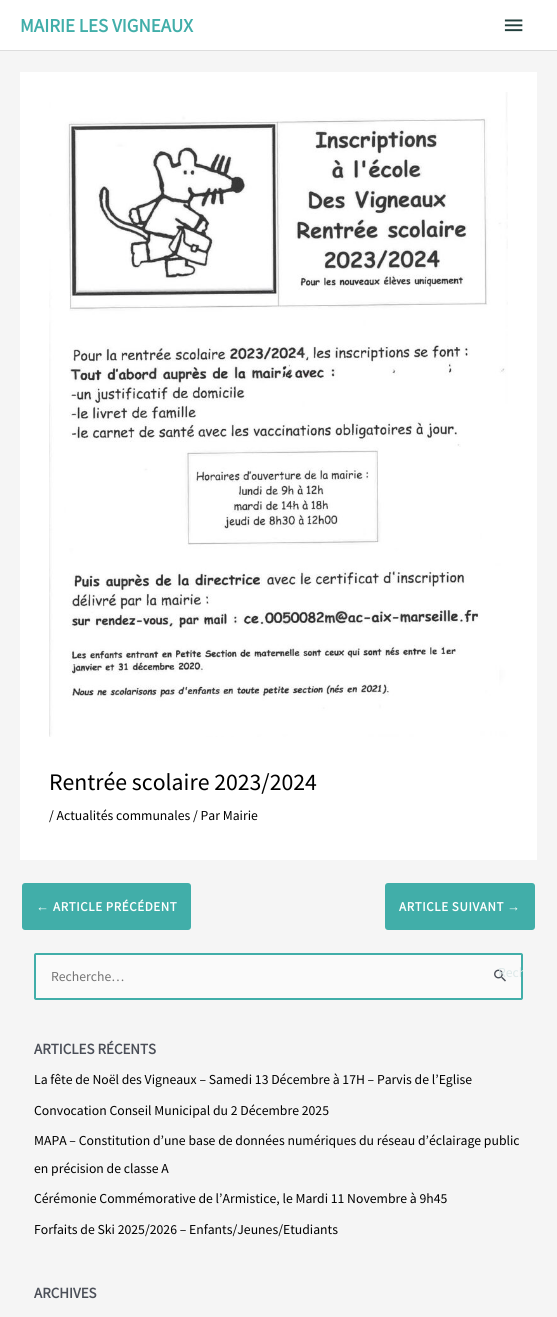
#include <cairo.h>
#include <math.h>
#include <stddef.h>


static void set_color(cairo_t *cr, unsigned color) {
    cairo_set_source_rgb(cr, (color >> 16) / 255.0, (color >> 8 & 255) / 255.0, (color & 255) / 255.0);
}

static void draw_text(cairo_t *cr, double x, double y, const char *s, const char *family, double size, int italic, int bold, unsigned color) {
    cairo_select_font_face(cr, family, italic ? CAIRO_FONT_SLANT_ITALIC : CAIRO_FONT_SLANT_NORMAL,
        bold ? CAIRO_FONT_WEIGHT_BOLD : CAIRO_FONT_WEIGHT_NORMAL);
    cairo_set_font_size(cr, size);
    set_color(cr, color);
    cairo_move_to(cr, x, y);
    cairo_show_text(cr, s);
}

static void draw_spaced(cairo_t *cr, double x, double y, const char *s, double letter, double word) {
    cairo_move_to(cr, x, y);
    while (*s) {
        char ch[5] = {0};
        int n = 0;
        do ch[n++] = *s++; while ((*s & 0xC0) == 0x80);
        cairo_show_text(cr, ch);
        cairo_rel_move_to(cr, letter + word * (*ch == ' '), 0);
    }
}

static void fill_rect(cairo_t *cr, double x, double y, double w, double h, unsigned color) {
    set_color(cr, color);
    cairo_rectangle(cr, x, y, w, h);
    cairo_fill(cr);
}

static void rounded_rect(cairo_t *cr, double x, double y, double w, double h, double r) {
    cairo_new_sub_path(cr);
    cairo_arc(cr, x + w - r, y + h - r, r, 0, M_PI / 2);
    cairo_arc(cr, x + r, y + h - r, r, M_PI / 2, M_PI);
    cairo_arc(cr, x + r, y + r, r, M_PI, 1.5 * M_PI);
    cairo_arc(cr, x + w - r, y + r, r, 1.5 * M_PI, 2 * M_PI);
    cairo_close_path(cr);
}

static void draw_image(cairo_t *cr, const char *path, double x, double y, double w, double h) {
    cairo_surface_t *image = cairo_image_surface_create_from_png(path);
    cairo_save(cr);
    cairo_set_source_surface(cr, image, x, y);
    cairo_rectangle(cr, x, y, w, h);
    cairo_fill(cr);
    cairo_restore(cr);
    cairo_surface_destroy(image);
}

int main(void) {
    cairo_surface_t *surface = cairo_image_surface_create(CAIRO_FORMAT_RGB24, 557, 1317);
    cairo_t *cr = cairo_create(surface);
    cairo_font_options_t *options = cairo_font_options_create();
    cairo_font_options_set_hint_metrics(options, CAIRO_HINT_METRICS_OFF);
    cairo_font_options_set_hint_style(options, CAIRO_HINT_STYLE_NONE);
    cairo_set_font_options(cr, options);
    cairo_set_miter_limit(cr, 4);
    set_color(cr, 0xF5F5F5);
    cairo_paint(cr);
    fill_rect(cr, 0, 0, 557, 50, 0xFFFFFF);
    fill_rect(cr, 0, 50, 557, 1, 0xDDDDDD);
    draw_text(cr, 20, 32, "MAIRIE LES VIGNEAUX", "Source Sans Pro", 19, 0, 1, 0x41AEA9);
    draw_image(cr, "assets/img1.png", 504, 19, 19, 13);
    fill_rect(cr, 20, 72, 517, 788, 0xFFFFFF);
    draw_image(cr, "assets/img2.png", 49, 92, 459, 645);
    draw_text(cr, 49, 790, "Rentrée scolaire 2023/2024", "Source Sans Pro", 23.75, 0, 0, 0x000000);
    draw_text(cr, 49, 820, "/ Actualités communales / Par Mairie", "Source Sans Pro", 13.7, 0, 0, 0x000000);
    set_color(cr, 0x41AEA9);
    rounded_rect(cr, 22, 883, 169, 47, 3);
    cairo_fill(cr);
    cairo_select_font_face(cr, "Liberation Sans", CAIRO_FONT_SLANT_NORMAL, CAIRO_FONT_WEIGHT_BOLD);
    cairo_set_font_size(cr, 13);
    set_color(cr, 0xFFFFFF);
    draw_spaced(cr, 36, 911, "←", 0.6, 0);
    cairo_select_font_face(cr, "Source Sans Pro", CAIRO_FONT_SLANT_NORMAL, CAIRO_FONT_WEIGHT_BOLD);
    draw_spaced(cr, 53, 911, "ARTICLE PRÉCÉDENT", 0.6, 0);
    set_color(cr, 0x41AEA9);
    rounded_rect(cr, 385, 883, 150, 47, 3);
    cairo_fill(cr);
    set_color(cr, 0xFFFFFF);
    draw_spaced(cr, 399, 911, "ARTICLE SUIVANT", 0.6, 0);
    cairo_select_font_face(cr, "Liberation Sans", CAIRO_FONT_SLANT_NORMAL, CAIRO_FONT_WEIGHT_BOLD);
    draw_spaced(cr, 507, 911, "→", 0.6, 0);
    set_color(cr, 0xFAFAFA);
    rounded_rect(cr, 35, 954, 487, 45, 1);
    cairo_fill_preserve(cr);
    set_color(cr, 0x41AEA9);
    cairo_stroke(cr);
    draw_image(cr, "assets/img3.png", 494, 969, 12, 13);
    cairo_save(cr);
    rounded_rect(cr, 478, 953, 45, 40, 2);
    cairo_clip(cr);
    draw_text(cr, 498, 977, "Rech", "Source Sans Pro", 13.7, 0, 0, 0xDEE9E9);
    cairo_restore(cr);
    draw_text(cr, 51, 981, "Recherche…", "Source Sans Pro", 13.7, 0, 0, 0x757575);
    draw_text(cr, 34, 1054, "ARTICLES RÉCENTS", "Source Sans Pro", 15, 0, 1, 0x4B4F58);
    draw_text(cr, 34, 1084, "La fête de Noël des Vigneaux – Samedi 13 Décembre à 17H – Parvis de l’Eglise", "Source Sans Pro", 13.7, 0, 0, 0x000000);
    draw_text(cr, 34, 1115, "Convocation Conseil Municipal du 2 Décembre 2025", "Source Sans Pro", 13.7, 0, 0, 0x000000);
    draw_text(cr, 34, 1145, "MAPA – Constitution d’une base de données numériques du réseau d’éclairage public", "Source Sans Pro", 13.7, 0, 0, 0x000000);
    draw_text(cr, 34, 1173, "en précision de classe A", "Source Sans Pro", 13.7, 0, 0, 0x000000);
    draw_text(cr, 34, 1203, "Cérémonie Commémorative de l’Armistice, le Mardi 11 Novembre à 9h45", "Source Sans Pro", 13.7, 0, 0, 0x000000);
    draw_text(cr, 34, 1234, "Forfaits de Ski 2025/2026 – Enfants/Jeunes/Etudiants", "Source Sans Pro", 13.7, 0, 0, 0x000000);
    draw_text(cr, 34, 1298, "ARCHIVES", "Source Sans Pro", 15, 0, 1, 0x4B4F58);
    cairo_surface_write_to_png(surface, "output.png");
    cairo_font_options_destroy(options);
    cairo_destroy(cr);
    cairo_surface_destroy(surface);
    return 0;
}
